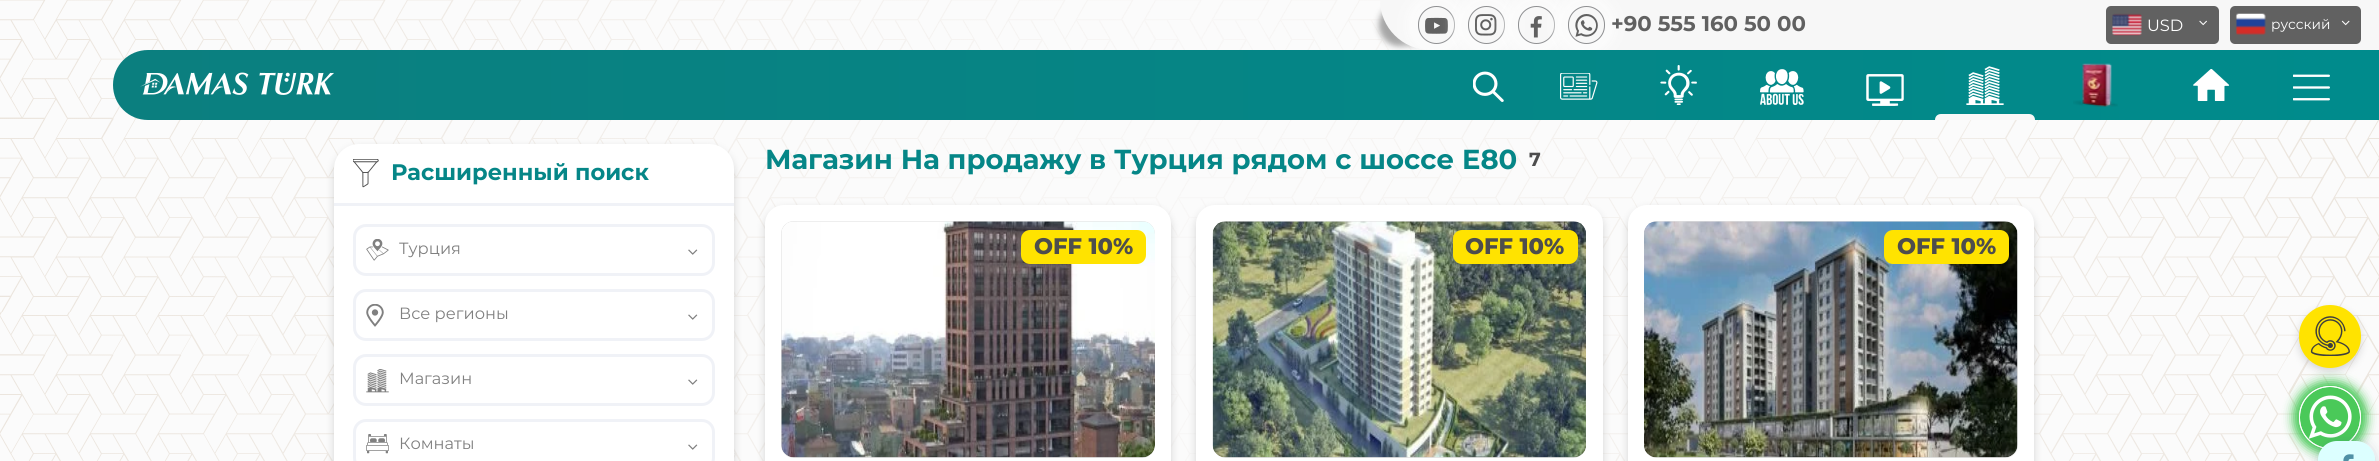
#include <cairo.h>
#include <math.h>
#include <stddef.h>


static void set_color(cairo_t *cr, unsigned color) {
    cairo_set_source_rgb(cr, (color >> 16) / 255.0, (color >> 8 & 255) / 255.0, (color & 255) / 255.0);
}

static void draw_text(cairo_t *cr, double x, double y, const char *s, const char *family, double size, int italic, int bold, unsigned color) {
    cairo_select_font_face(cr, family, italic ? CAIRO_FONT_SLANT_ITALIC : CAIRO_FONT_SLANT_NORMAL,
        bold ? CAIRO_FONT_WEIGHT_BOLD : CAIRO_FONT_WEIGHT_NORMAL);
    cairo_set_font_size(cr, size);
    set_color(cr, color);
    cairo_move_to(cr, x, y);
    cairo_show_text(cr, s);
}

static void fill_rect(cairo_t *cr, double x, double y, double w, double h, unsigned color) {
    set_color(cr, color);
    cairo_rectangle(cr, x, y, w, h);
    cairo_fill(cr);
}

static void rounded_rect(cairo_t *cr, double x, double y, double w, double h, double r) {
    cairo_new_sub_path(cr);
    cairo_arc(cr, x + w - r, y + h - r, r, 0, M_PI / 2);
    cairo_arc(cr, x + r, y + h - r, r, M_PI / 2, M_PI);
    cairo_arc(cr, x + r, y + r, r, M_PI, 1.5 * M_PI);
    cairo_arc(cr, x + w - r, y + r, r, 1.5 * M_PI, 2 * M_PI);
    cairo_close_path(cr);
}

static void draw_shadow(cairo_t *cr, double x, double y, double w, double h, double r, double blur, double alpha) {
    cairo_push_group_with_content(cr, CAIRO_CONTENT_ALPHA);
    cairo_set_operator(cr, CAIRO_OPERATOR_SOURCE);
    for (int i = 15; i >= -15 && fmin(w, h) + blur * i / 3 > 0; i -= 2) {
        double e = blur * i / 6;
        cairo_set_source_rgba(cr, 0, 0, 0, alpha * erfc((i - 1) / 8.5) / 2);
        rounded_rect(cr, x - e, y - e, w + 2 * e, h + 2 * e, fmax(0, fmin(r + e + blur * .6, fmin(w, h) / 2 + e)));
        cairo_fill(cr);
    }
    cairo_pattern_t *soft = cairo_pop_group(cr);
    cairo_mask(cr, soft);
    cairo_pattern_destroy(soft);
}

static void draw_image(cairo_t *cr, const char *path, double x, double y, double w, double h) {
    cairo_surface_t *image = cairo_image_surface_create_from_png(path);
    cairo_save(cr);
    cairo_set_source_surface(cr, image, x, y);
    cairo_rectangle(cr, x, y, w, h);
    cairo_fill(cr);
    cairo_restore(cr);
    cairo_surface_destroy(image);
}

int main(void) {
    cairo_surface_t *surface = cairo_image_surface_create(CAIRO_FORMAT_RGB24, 2379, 461);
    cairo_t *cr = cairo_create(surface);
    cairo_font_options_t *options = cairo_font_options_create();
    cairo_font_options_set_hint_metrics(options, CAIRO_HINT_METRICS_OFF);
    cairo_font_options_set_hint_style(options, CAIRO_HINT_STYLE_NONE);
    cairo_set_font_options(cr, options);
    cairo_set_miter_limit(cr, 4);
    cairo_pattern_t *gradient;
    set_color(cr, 0xFBFBFB);
    cairo_paint(cr);
    draw_image(cr, "assets/img1.png", 0, 0, 2379, 461);
    set_color(cr, 0xA6A6A6);
    draw_shadow(cr, 1379, 4, 992, 42, 43, 3, 1);
    set_color(cr, 0xF7F7F7);
    cairo_new_path(cr);
    cairo_move_to(cr, 1380, 0);
    cairo_line_to(cr, 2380, 0);
    cairo_line_to(cr, 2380, 50);
    cairo_line_to(cr, 1430, 50);
    cairo_curve_to(cr, 1402.5, 50, 1380, 27.5, 1380, 0);
    cairo_close_path(cr);
    cairo_fill(cr);
    cairo_save(cr);
    cairo_set_fill_rule(cr, CAIRO_FILL_RULE_EVEN_ODD);
    cairo_new_path(cr);
    cairo_move_to(cr, 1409, 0);
    cairo_line_to(cr, 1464, 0);
    cairo_line_to(cr, 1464, 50);
    cairo_line_to(cr, 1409, 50);
    cairo_close_path(cr);
    cairo_move_to(cr, 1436.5, 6);
    cairo_curve_to(cr, 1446.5, 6, 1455, 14.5, 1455, 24.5);
    cairo_line_to(cr, 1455, 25.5);
    cairo_curve_to(cr, 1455, 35.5, 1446.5, 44, 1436.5, 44);
    cairo_curve_to(cr, 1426.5, 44, 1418, 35.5, 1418, 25.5);
    cairo_line_to(cr, 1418, 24.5);
    cairo_curve_to(cr, 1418, 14.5, 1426.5, 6, 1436.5, 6);
    cairo_close_path(cr);
    cairo_clip(cr);
    set_color(cr, 0xCECFD1);
    draw_shadow(cr, 1418, 4, 37, 37, 18.5, 2.5, 1);
    cairo_restore(cr);
    cairo_save(cr);
    cairo_set_fill_rule(cr, CAIRO_FILL_RULE_EVEN_ODD);
    cairo_new_path(cr);
    cairo_move_to(cr, 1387, 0);
    cairo_line_to(cr, 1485, 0);
    cairo_line_to(cr, 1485, 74);
    cairo_line_to(cr, 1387, 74);
    cairo_close_path(cr);
    cairo_move_to(cr, 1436.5, 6);
    cairo_curve_to(cr, 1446.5, 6, 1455, 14.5, 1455, 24.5);
    cairo_line_to(cr, 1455, 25.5);
    cairo_curve_to(cr, 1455, 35.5, 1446.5, 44, 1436.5, 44);
    cairo_curve_to(cr, 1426.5, 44, 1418, 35.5, 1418, 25.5);
    cairo_line_to(cr, 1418, 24.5);
    cairo_curve_to(cr, 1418, 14.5, 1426.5, 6, 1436.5, 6);
    cairo_close_path(cr);
    cairo_clip(cr);
    set_color(cr, 0xFCFCFC);
    draw_shadow(cr, 1406, -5, 60, 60, 30, 6, 1);
    cairo_restore(cr);
    draw_image(cr, "assets/img2.png", 1425, 17, 23, 17);
    rounded_rect(cr, 1418.5, 6.5, 36, 37, 18);
    set_color(cr, 0x8F9092);
    cairo_set_line_width(cr, 1);
    cairo_stroke(cr);
    cairo_save(cr);
    cairo_set_fill_rule(cr, CAIRO_FILL_RULE_EVEN_ODD);
    cairo_new_path(cr);
    cairo_move_to(cr, 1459, 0);
    cairo_line_to(cr, 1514, 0);
    cairo_line_to(cr, 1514, 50);
    cairo_line_to(cr, 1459, 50);
    cairo_close_path(cr);
    cairo_move_to(cr, 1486.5, 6);
    cairo_curve_to(cr, 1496.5, 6, 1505, 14.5, 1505, 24.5);
    cairo_line_to(cr, 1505, 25.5);
    cairo_curve_to(cr, 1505, 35.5, 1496.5, 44, 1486.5, 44);
    cairo_curve_to(cr, 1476.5, 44, 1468, 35.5, 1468, 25.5);
    cairo_line_to(cr, 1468, 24.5);
    cairo_curve_to(cr, 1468, 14.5, 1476.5, 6, 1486.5, 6);
    cairo_close_path(cr);
    cairo_clip(cr);
    set_color(cr, 0xCECFD1);
    draw_shadow(cr, 1468, 4, 37, 37, 18.5, 2.5, 1);
    cairo_restore(cr);
    cairo_save(cr);
    cairo_set_fill_rule(cr, CAIRO_FILL_RULE_EVEN_ODD);
    cairo_new_path(cr);
    cairo_move_to(cr, 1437, 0);
    cairo_line_to(cr, 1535, 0);
    cairo_line_to(cr, 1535, 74);
    cairo_line_to(cr, 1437, 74);
    cairo_close_path(cr);
    cairo_move_to(cr, 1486.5, 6);
    cairo_curve_to(cr, 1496.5, 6, 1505, 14.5, 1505, 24.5);
    cairo_line_to(cr, 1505, 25.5);
    cairo_curve_to(cr, 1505, 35.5, 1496.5, 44, 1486.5, 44);
    cairo_curve_to(cr, 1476.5, 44, 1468, 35.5, 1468, 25.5);
    cairo_line_to(cr, 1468, 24.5);
    cairo_curve_to(cr, 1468, 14.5, 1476.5, 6, 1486.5, 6);
    cairo_close_path(cr);
    cairo_clip(cr);
    set_color(cr, 0xFCFCFC);
    draw_shadow(cr, 1456, -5, 60, 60, 30, 6, 1);
    cairo_restore(cr);
    rounded_rect(cr, 1468.5, 6.5, 36, 37, 18);
    cairo_stroke(cr);
    draw_image(cr, "assets/img3.png", 1475, 14, 22, 22);
    cairo_save(cr);
    cairo_set_fill_rule(cr, CAIRO_FILL_RULE_EVEN_ODD);
    cairo_new_path(cr);
    cairo_move_to(cr, 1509, 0);
    cairo_line_to(cr, 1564, 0);
    cairo_line_to(cr, 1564, 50);
    cairo_line_to(cr, 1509, 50);
    cairo_close_path(cr);
    cairo_move_to(cr, 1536.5, 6);
    cairo_curve_to(cr, 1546.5, 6, 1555, 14.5, 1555, 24.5);
    cairo_line_to(cr, 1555, 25.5);
    cairo_curve_to(cr, 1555, 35.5, 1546.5, 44, 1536.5, 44);
    cairo_curve_to(cr, 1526.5, 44, 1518, 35.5, 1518, 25.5);
    cairo_line_to(cr, 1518, 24.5);
    cairo_curve_to(cr, 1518, 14.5, 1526.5, 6, 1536.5, 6);
    cairo_close_path(cr);
    cairo_clip(cr);
    set_color(cr, 0xCECFD1);
    draw_shadow(cr, 1518, 4, 37, 37, 18.5, 2.5, 1);
    cairo_restore(cr);
    cairo_save(cr);
    cairo_set_fill_rule(cr, CAIRO_FILL_RULE_EVEN_ODD);
    cairo_new_path(cr);
    cairo_move_to(cr, 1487, 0);
    cairo_line_to(cr, 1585, 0);
    cairo_line_to(cr, 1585, 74);
    cairo_line_to(cr, 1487, 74);
    cairo_close_path(cr);
    cairo_move_to(cr, 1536.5, 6);
    cairo_curve_to(cr, 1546.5, 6, 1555, 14.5, 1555, 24.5);
    cairo_line_to(cr, 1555, 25.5);
    cairo_curve_to(cr, 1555, 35.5, 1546.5, 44, 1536.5, 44);
    cairo_curve_to(cr, 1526.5, 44, 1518, 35.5, 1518, 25.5);
    cairo_line_to(cr, 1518, 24.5);
    cairo_curve_to(cr, 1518, 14.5, 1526.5, 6, 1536.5, 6);
    cairo_close_path(cr);
    cairo_clip(cr);
    set_color(cr, 0xFCFCFC);
    draw_shadow(cr, 1506, -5, 60, 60, 30, 6, 1);
    cairo_restore(cr);
    draw_image(cr, "assets/img4.png", 1530, 16, 12, 22);
    rounded_rect(cr, 1518.5, 6.5, 36, 37, 18);
    cairo_stroke(cr);
    cairo_save(cr);
    cairo_set_fill_rule(cr, CAIRO_FILL_RULE_EVEN_ODD);
    cairo_new_path(cr);
    cairo_move_to(cr, 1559, 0);
    cairo_line_to(cr, 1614, 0);
    cairo_line_to(cr, 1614, 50);
    cairo_line_to(cr, 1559, 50);
    cairo_close_path(cr);
    cairo_move_to(cr, 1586.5, 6);
    cairo_curve_to(cr, 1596.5, 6, 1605, 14.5, 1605, 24.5);
    cairo_line_to(cr, 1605, 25.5);
    cairo_curve_to(cr, 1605, 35.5, 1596.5, 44, 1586.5, 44);
    cairo_curve_to(cr, 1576.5, 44, 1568, 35.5, 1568, 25.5);
    cairo_line_to(cr, 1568, 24.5);
    cairo_curve_to(cr, 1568, 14.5, 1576.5, 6, 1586.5, 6);
    cairo_close_path(cr);
    cairo_clip(cr);
    set_color(cr, 0xCECFD1);
    draw_shadow(cr, 1568, 4, 37, 37, 18.5, 2.5, 1);
    cairo_restore(cr);
    cairo_save(cr);
    cairo_set_fill_rule(cr, CAIRO_FILL_RULE_EVEN_ODD);
    cairo_new_path(cr);
    cairo_move_to(cr, 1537, 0);
    cairo_line_to(cr, 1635, 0);
    cairo_line_to(cr, 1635, 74);
    cairo_line_to(cr, 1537, 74);
    cairo_close_path(cr);
    cairo_move_to(cr, 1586.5, 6);
    cairo_curve_to(cr, 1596.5, 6, 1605, 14.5, 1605, 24.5);
    cairo_line_to(cr, 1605, 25.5);
    cairo_curve_to(cr, 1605, 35.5, 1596.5, 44, 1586.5, 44);
    cairo_curve_to(cr, 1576.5, 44, 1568, 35.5, 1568, 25.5);
    cairo_line_to(cr, 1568, 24.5);
    cairo_curve_to(cr, 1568, 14.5, 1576.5, 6, 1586.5, 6);
    cairo_close_path(cr);
    cairo_clip(cr);
    set_color(cr, 0xFCFCFC);
    draw_shadow(cr, 1556, -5, 60, 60, 30, 6, 1);
    cairo_restore(cr);
    draw_image(cr, "assets/img5.png", 1575, 14, 23, 23);
    rounded_rect(cr, 1568.5, 6.5, 36, 37, 18);
    cairo_stroke(cr);
    draw_text(cr, 1611, 31, "+90 555 160 50 00", "Montserrat", 21.25, 0, 1, 0x616161);
    rounded_rect(cr, 2106, 6, 113, 38, 5);
    cairo_fill(cr);
    draw_image(cr, "assets/img6.png", 2112, 13, 30, 23);
    draw_text(cr, 2147, 31, "USD", "Montserrat", 16.25, 0, 0, 0xFFFFFF);
    draw_image(cr, "assets/img7.png", 2199, 20, 8, 6);
    set_color(cr, 0x616161);
    rounded_rect(cr, 2230, 6, 131, 38, 5);
    cairo_fill(cr);
    draw_image(cr, "assets/img8.png", 2235, 13, 31, 22);
    draw_text(cr, 2271, 29, "русский", "Montserrat", 13.75, 0, 0, 0xFFFFFF);
    draw_image(cr, "assets/img9.png", 2341, 20, 9, 6);
    gradient = cairo_pattern_create_linear(113, 85, 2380, 85);
    cairo_pattern_add_color_stop_rgba(gradient, 0, 0.043, 0.498, 0.498, 1);
    cairo_pattern_add_color_stop_rgba(gradient, 1, 0, 0.545, 0.549, 1);
    cairo_set_source(cr, gradient);
    cairo_pattern_destroy(gradient);
    cairo_new_path(cr);
    cairo_move_to(cr, 148, 50);
    cairo_line_to(cr, 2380, 50);
    cairo_line_to(cr, 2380, 120);
    cairo_line_to(cr, 148, 120);
    cairo_curve_to(cr, 128.5, 120, 113, 104.5, 113, 85);
    cairo_curve_to(cr, 113, 65.5, 128.5, 50, 148, 50);
    cairo_close_path(cr);
    cairo_fill(cr);
    draw_image(cr, "assets/img10.png", 140, 72, 194, 23);
    draw_image(cr, "assets/img11.png", 1473, 71, 31, 31);
    draw_image(cr, "assets/img12.png", 1560, 73, 38, 27);
    draw_image(cr, "assets/img13.png", 1660, 65, 37, 40);
    draw_image(cr, "assets/img14.png", 1760, 69, 44, 36);
    draw_image(cr, "assets/img15.png", 1866, 74, 38, 32);
    draw_image(cr, "assets/img16.png", 1966, 66, 38, 39);
    set_color(cr, 0xF7F7F7);
    cairo_new_path(cr);
    cairo_move_to(cr, 1941, 114);
    cairo_line_to(cr, 2029, 114);
    cairo_curve_to(cr, 2032.5, 114, 2035, 116.5, 2035, 120);
    cairo_line_to(cr, 1935, 120);
    cairo_curve_to(cr, 1935, 116.5, 1937.5, 114, 1941, 114);
    cairo_close_path(cr);
    cairo_fill(cr);
    draw_image(cr, "assets/img17.png", 2073, 63, 45, 44);
    draw_image(cr, "assets/img18.png", 2193, 69, 37, 32);
    draw_image(cr, "assets/img19.png", 2293, 74, 37, 27);
    set_color(cr, 0xABABAB);
    draw_shadow(cr, 334, 148, 400, 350, 25, 4, 0.5);
    set_color(cr, 0xFFFFFF);
    rounded_rect(cr, 334, 144, 400, 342, 25);
    cairo_fill(cr);
    fill_rect(cr, 334, 203, 400, 3, 0xF0F2F7);
    draw_image(cr, "assets/img20.png", 353, 159, 26, 29);
    draw_text(cr, 391, 180, "Расширенный поиск", "Montserrat", 22.5, 0, 1, 0x058687);
    rounded_rect(cr, 354.5, 225.5, 359, 49, 11.5);
    set_color(cr, 0xF0F2F7);
    cairo_set_line_width(cr, 3);
    cairo_stroke(cr);
    draw_image(cr, "assets/img21.png", 366, 239, 23, 22);
    draw_text(cr, 399, 254, "Турция", "Montserrat", 16.25, 0, 0, 0x808080);
    draw_image(cr, "assets/img22.png", 688, 249, 10, 6);
    rounded_rect(cr, 354.5, 290.5, 359, 49, 11.5);
    set_color(cr, 0xF0F2F7);
    cairo_stroke(cr);
    draw_image(cr, "assets/img23.png", 366, 304, 18, 23);
    draw_text(cr, 399, 319, "Все регионы", "Montserrat", 16.25, 0, 0, 0x808080);
    draw_image(cr, "assets/img22.png", 688, 314, 10, 6);
    rounded_rect(cr, 354.5, 355.5, 359, 49, 11.5);
    set_color(cr, 0xF0F2F7);
    cairo_stroke(cr);
    draw_image(cr, "assets/img24.png", 366, 369, 23, 24);
    draw_text(cr, 399, 384, "Магазин", "Montserrat", 16.25, 0, 0, 0x808080);
    draw_image(cr, "assets/img22.png", 688, 379, 10, 6);
    rounded_rect(cr, 354.5, 420.5, 359, 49, 11.5);
    set_color(cr, 0xF0F2F7);
    cairo_stroke(cr);
    draw_image(cr, "assets/img25.png", 366, 434, 23, 20);
    draw_text(cr, 399, 449, "Комнаты", "Montserrat", 16.25, 0, 0, 0x808080);
    draw_image(cr, "assets/img22.png", 688, 444, 10, 6);
    draw_text(cr, 765, 169, "Магазин На продажу в Турция рядом с шоссе E80", "Montserrat", 27.5, 0, 1, 0x058687);
    draw_text(cr, 1529, 166, "7", "Montserrat", 19, 0, 1, 0x4D4D4D);
    set_color(cr, 0xABABAB);
    draw_shadow(cr, 765, 209, 406, 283, 19, 4, 0.5);
    set_color(cr, 0xFFFFFF);
    rounded_rect(cr, 765, 205, 406, 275, 19);
    cairo_fill(cr);
    set_color(cr, 0xE2E2E2);
    rounded_rect(cr, 781, 221, 374, 237, 13);
    cairo_fill(cr);
    draw_image(cr, "assets/img26.png", 781, 221, 374, 237);
    set_color(cr, 0xFFE300);
    rounded_rect(cr, 1021, 230, 125, 34, 9);
    cairo_fill(cr);
    draw_text(cr, 1034, 254, "OFF 10%", "Montserrat ExtraBold", 22.5, 0, 0, 0x4D4D4D);
    set_color(cr, 0xABABAB);
    draw_shadow(cr, 1196, 209, 407, 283, 19, 4, 0.5);
    set_color(cr, 0xFFFFFF);
    rounded_rect(cr, 1196, 205, 407, 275, 19);
    cairo_fill(cr);
    set_color(cr, 0xE2E2E2);
    rounded_rect(cr, 1213, 221, 373, 237, 13);
    cairo_fill(cr);
    draw_image(cr, "assets/img27.png", 1212, 221, 374, 237);
    set_color(cr, 0xFFE300);
    rounded_rect(cr, 1453, 230, 125, 34, 9);
    cairo_fill(cr);
    draw_text(cr, 1465, 254, "OFF 10%", "Montserrat ExtraBold", 22.5, 0, 0, 0x4D4D4D);
    set_color(cr, 0xABABAB);
    draw_shadow(cr, 1628, 209, 406, 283, 19, 4, 0.5);
    set_color(cr, 0xFFFFFF);
    rounded_rect(cr, 1628, 205, 406, 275, 19);
    cairo_fill(cr);
    set_color(cr, 0xE2E2E2);
    rounded_rect(cr, 1644, 221, 374, 237, 13);
    cairo_fill(cr);
    draw_image(cr, "assets/img28.png", 1644, 221, 374, 237);
    set_color(cr, 0xFFE300);
    rounded_rect(cr, 1884, 230, 125, 34, 9);
    cairo_fill(cr);
    draw_text(cr, 1897, 254, "OFF 10%", "Montserrat ExtraBold", 22.5, 0, 0, 0x4D4D4D);
    set_color(cr, 0xABABAB);
    draw_shadow(cr, 2299, 309, 62, 62, 31, 4, 0.5);
    set_color(cr, 0x4AC959);
    rounded_rect(cr, 2299, 386, 62, 63, 31);
    cairo_fill(cr);
    draw_image(cr, "assets/img30.png", 2308, 395, 44, 44);
    cairo_save(cr);
    cairo_set_fill_rule(cr, CAIRO_FILL_RULE_EVEN_ODD);
    cairo_new_path(cr);
    cairo_move_to(cr, 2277, 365);
    cairo_line_to(cr, 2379, 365);
    cairo_line_to(cr, 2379, 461);
    cairo_line_to(cr, 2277, 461);
    cairo_close_path(cr);
    cairo_move_to(cr, 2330, 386);
    cairo_curve_to(cr, 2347, 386, 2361, 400, 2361, 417);
    cairo_line_to(cr, 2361, 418);
    cairo_curve_to(cr, 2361, 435, 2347, 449, 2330, 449);
    cairo_curve_to(cr, 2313, 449, 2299, 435, 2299, 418);
    cairo_line_to(cr, 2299, 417);
    cairo_curve_to(cr, 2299, 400, 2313, 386, 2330, 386);
    cairo_close_path(cr);
    cairo_clip(cr);
    set_color(cr, 0x4AC959);
    draw_shadow(cr, 2296, 384, 68, 67, 33.5, 6, 1);
    cairo_restore(cr);
    rounded_rect(cr, 2299.5, 386.5, 61, 62, 30.5);
    set_color(cr, 0xFFFFFF);
    cairo_set_line_width(cr, 1);
    cairo_stroke(cr);
    cairo_save(cr);
    cairo_set_fill_rule(cr, CAIRO_FILL_RULE_EVEN_ODD);
    cairo_new_path(cr);
    cairo_move_to(cr, 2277, 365);
    cairo_line_to(cr, 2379, 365);
    cairo_line_to(cr, 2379, 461);
    cairo_line_to(cr, 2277, 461);
    cairo_close_path(cr);
    cairo_move_to(cr, 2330, 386);
    cairo_curve_to(cr, 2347, 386, 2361, 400, 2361, 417);
    cairo_line_to(cr, 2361, 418);
    cairo_curve_to(cr, 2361, 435, 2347, 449, 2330, 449);
    cairo_curve_to(cr, 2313, 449, 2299, 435, 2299, 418);
    cairo_line_to(cr, 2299, 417);
    cairo_curve_to(cr, 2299, 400, 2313, 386, 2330, 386);
    cairo_close_path(cr);
    cairo_clip(cr);
    set_color(cr, 0x4AC959);
    draw_shadow(cr, 2296, 384, 68, 67, 33.5, 6, 1);
    cairo_restore(cr);
    set_color(cr, 0xFFE300);
    rounded_rect(cr, 2299, 305, 62, 63, 31);
    cairo_fill(cr);
    draw_image(cr, "assets/img29.png", 2310, 316, 40, 40);
    rounded_rect(cr, 2299.5, 386.5, 61, 62, 30.5);
    set_color(cr, 0xFFFFFF);
    cairo_stroke(cr);
    set_color(cr, 0xDCFFFF);
    rounded_rect(cr, 2321, 444, 51, 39, 16);
    cairo_fill_preserve(cr);
    cairo_set_line_width(cr, 6);
    cairo_stroke(cr);
    draw_image(cr, "assets/img31.png", 2343, 454, 11, 7);
    cairo_save(cr);
    cairo_set_fill_rule(cr, CAIRO_FILL_RULE_EVEN_ODD);
    cairo_new_path(cr);
    cairo_move_to(cr, 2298, 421);
    cairo_line_to(cr, 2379, 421);
    cairo_line_to(cr, 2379, 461);
    cairo_line_to(cr, 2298, 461);
    cairo_close_path(cr);
    cairo_move_to(cr, 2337, 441);
    cairo_line_to(cr, 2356, 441);
    cairo_curve_to(cr, 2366.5, 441, 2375, 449.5, 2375, 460);
    cairo_line_to(cr, 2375, 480);
    cairo_curve_to(cr, 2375, 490.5, 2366.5, 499, 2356, 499);
    cairo_line_to(cr, 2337, 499);
    cairo_curve_to(cr, 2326.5, 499, 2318, 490.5, 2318, 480);
    cairo_line_to(cr, 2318, 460);
    cairo_curve_to(cr, 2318, 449.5, 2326.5, 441, 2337, 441);
    cairo_close_path(cr);
    cairo_clip(cr);
    set_color(cr, 0x3C6C7B);
    draw_shadow(cr, 2323, 446, 47, 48, 14, 8, 0.5);
    cairo_restore(cr);
    cairo_surface_write_to_png(surface, "output.png");
    cairo_font_options_destroy(options);
    cairo_destroy(cr);
    cairo_surface_destroy(surface);
    return 0;
}
